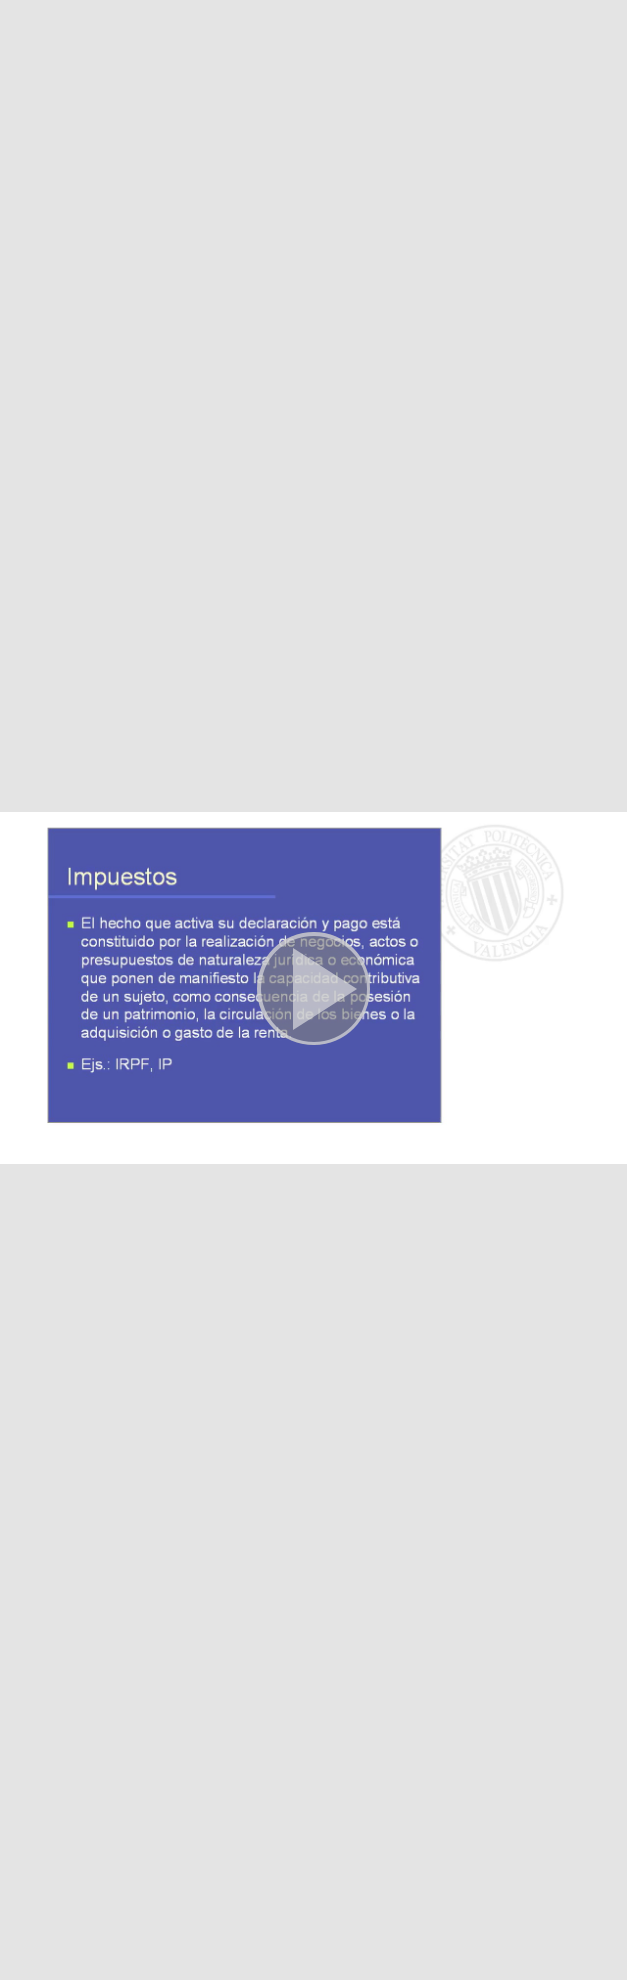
#include <cairo.h>
#include <math.h>
#include <stddef.h>


static void set_color(cairo_t *cr, unsigned color) {
    cairo_set_source_rgb(cr, (color >> 16) / 255.0, (color >> 8 & 255) / 255.0, (color & 255) / 255.0);
}

static void draw_image(cairo_t *cr, const char *path, double x, double y, double w, double h) {
    cairo_surface_t *image = cairo_image_surface_create_from_png(path);
    cairo_save(cr);
    cairo_set_source_surface(cr, image, x, y);
    cairo_rectangle(cr, x, y, w, h);
    cairo_fill(cr);
    cairo_restore(cr);
    cairo_surface_destroy(image);
}

int main(void) {
    cairo_surface_t *surface = cairo_image_surface_create(CAIRO_FORMAT_RGB24, 627, 1980);
    cairo_t *cr = cairo_create(surface);
    cairo_font_options_t *options = cairo_font_options_create();
    cairo_font_options_set_hint_metrics(options, CAIRO_HINT_METRICS_OFF);
    cairo_font_options_set_hint_style(options, CAIRO_HINT_STYLE_NONE);
    cairo_set_font_options(cr, options);
    cairo_set_miter_limit(cr, 4);
    set_color(cr, 0xE4E4E4);
    cairo_paint(cr);
    draw_image(cr, "assets/img1.png", 0, 812, 627, 352);
    cairo_set_source_rgba(cr, 0.502, 0.502, 0.502, 0.6);
    cairo_arc(cr, 313.5, 988.5, 56.5, 0, 2 * M_PI);
    cairo_fill(cr);
    cairo_set_source_rgba(cr, 0.922, 0.922, 0.922, 0.6);
    cairo_set_fill_rule(cr, CAIRO_FILL_RULE_EVEN_ODD);
    cairo_new_path(cr);
    cairo_move_to(cr, 314, 932);
    cairo_curve_to(cr, 345, 932, 370, 957, 370, 989);
    cairo_curve_to(cr, 370, 1020, 345, 1045, 314, 1045);
    cairo_curve_to(cr, 282, 1045, 257, 1020, 257, 989);
    cairo_curve_to(cr, 257, 957, 282, 932, 314, 932);
    cairo_close_path(cr);
    cairo_move_to(cr, 314, 936);
    cairo_curve_to(cr, 343, 936, 367, 959, 367, 989);
    cairo_curve_to(cr, 367, 1018, 343, 1042, 314, 1042);
    cairo_curve_to(cr, 284, 1042, 261, 1018, 261, 989);
    cairo_curve_to(cr, 261, 959, 284, 936, 314, 936);
    cairo_close_path(cr);
    cairo_fill(cr);
    cairo_new_path(cr);
    cairo_move_to(cr, 357, 989);
    cairo_line_to(cr, 293, 1030);
    cairo_line_to(cr, 293, 948);
    cairo_close_path(cr);
    cairo_fill(cr);
    cairo_surface_write_to_png(surface, "output.png");
    cairo_font_options_destroy(options);
    cairo_destroy(cr);
    cairo_surface_destroy(surface);
    return 0;
}
